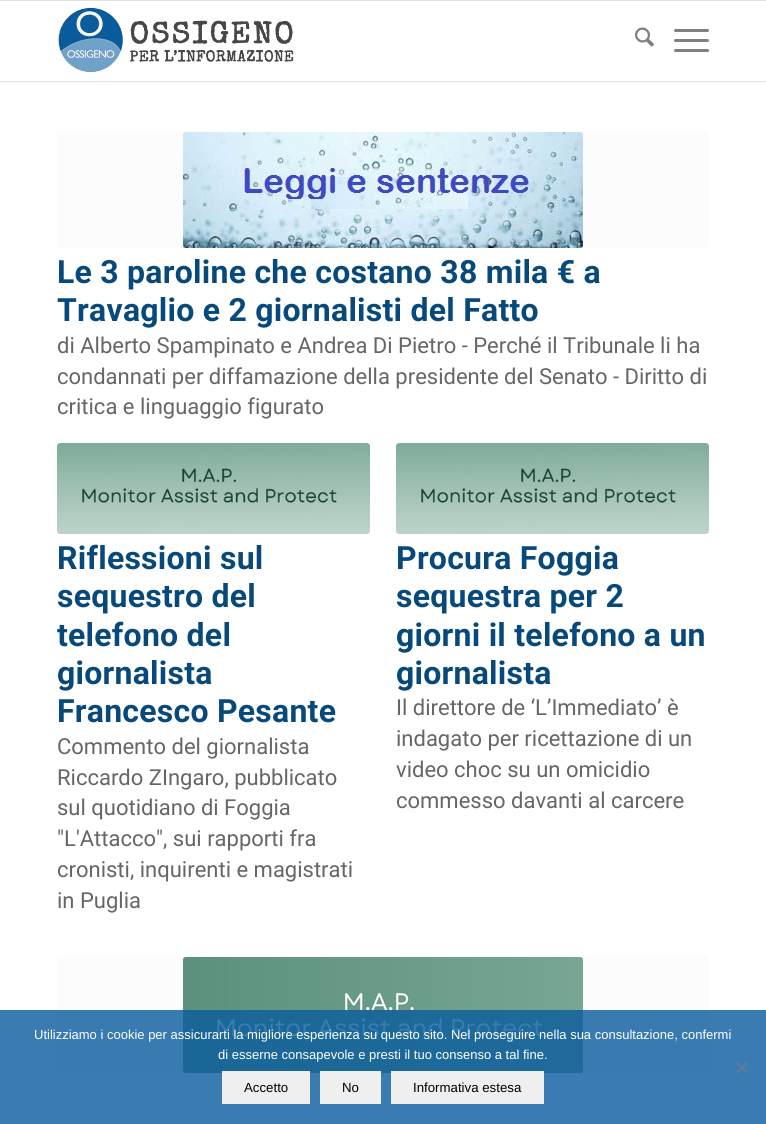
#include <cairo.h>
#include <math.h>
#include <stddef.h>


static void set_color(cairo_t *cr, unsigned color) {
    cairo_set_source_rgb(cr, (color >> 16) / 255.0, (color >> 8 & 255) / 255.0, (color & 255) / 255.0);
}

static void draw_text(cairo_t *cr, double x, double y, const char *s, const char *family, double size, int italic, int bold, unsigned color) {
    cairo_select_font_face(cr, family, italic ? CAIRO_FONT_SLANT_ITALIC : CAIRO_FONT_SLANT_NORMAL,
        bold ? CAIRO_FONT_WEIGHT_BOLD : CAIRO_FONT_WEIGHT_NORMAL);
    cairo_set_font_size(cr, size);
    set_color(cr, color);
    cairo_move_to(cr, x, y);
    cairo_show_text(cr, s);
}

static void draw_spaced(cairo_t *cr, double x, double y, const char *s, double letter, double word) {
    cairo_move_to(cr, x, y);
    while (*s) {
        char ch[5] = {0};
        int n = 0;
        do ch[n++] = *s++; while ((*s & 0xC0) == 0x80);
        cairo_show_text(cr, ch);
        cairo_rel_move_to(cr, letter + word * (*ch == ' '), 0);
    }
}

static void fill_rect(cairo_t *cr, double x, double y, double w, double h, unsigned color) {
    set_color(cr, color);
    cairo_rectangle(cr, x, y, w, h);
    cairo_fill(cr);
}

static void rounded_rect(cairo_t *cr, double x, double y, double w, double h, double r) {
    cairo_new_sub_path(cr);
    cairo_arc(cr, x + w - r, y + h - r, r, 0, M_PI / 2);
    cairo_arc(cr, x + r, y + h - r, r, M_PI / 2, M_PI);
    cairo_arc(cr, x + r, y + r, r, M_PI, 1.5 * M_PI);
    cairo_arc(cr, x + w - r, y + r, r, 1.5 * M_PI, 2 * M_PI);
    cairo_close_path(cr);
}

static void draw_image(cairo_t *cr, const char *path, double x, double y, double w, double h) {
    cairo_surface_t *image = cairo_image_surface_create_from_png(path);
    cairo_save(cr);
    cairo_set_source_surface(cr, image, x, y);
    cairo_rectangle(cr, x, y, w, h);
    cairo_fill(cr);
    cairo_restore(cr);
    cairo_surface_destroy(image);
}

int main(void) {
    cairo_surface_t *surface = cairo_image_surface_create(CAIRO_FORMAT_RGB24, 766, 1124);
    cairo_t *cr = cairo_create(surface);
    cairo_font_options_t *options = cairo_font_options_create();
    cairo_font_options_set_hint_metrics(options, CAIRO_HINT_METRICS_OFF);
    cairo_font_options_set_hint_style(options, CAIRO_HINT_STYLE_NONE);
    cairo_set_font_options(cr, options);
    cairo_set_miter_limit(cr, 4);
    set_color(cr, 0xFFFFFF);
    cairo_paint(cr);
    fill_rect(cr, 0, 0, 766, 1, 0xE1E1E1);
    fill_rect(cr, 0, 81, 766, 1, 0xE1E1E1);
    draw_image(cr, "assets/img1.png", 58, 7, 236, 66);
    draw_image(cr, "assets/img2.png", 635, 27, 19, 20);
    set_color(cr, 0x808080);
    rounded_rect(cr, 674, 39, 35, 3, 1.5);
    cairo_fill(cr);
    rounded_rect(cr, 674, 29, 35, 3, 1.5);
    cairo_fill(cr);
    rounded_rect(cr, 674, 49, 35, 3, 1.5);
    cairo_fill(cr);
    set_color(cr, 0xFCFCFC);
    rounded_rect(cr, 57, 132, 652, 116, 3);
    cairo_fill(cr);
    draw_image(cr, "assets/img3.png", 183, 132, 400, 116);
    cairo_select_font_face(cr, "Roboto", CAIRO_FONT_SLANT_NORMAL, CAIRO_FONT_WEIGHT_BOLD);
    cairo_set_font_size(cr, 32);
    set_color(cr, 0x08497C);
    draw_spaced(cr, 57, 283, "Le 3 paroline che costano 38 mila € a", 0.25, 0);
    draw_spaced(cr, 57, 321, "Travaglio e 2 giornalisti del Fatto", 0.25, 0);
    draw_text(cr, 57, 353, "di Alberto Spampinato e Andrea Di Pietro - Perché il Tribunale li ha", "Roboto", 22, 0, 0, 0x666666);
    draw_text(cr, 57, 384, "condannati per diffamazione della presidente del Senato - Diritto di", "Roboto", 22, 0, 0, 0x666666);
    draw_text(cr, 57, 414, "critica e linguaggio figurato", "Roboto", 22, 0, 0, 0x666666);
    set_color(cr, 0xFCFCFC);
    rounded_rect(cr, 57, 443, 313, 91, 3);
    cairo_fill(cr);
    draw_image(cr, "assets/img4.png", 57, 443, 313, 91);
    cairo_select_font_face(cr, "Roboto", CAIRO_FONT_SLANT_NORMAL, CAIRO_FONT_WEIGHT_BOLD);
    cairo_set_font_size(cr, 32);
    set_color(cr, 0x08497C);
    draw_spaced(cr, 57, 569, "Riflessioni sul", 0.25, 0);
    draw_spaced(cr, 57, 607, "sequestro del", 0.25, 0);
    draw_spaced(cr, 57, 646, "telefono del", 0.25, 0);
    draw_spaced(cr, 57, 684, "giornalista", 0.25, 0);
    draw_spaced(cr, 57, 722, "Francesco Pesante", 0.25, 0);
    draw_text(cr, 57, 754, "Commento del giornalista", "Roboto", 22, 0, 0, 0x666666);
    draw_text(cr, 57, 785, "Riccardo ZIngaro, pubblicato", "Roboto", 22, 0, 0, 0x666666);
    draw_text(cr, 57, 815, "sul quotidiano di Foggia", "Roboto", 22, 0, 0, 0x666666);
    draw_text(cr, 57, 846, "\"L'Attacco\", sui rapporti fra", "Roboto", 22, 0, 0, 0x666666);
    draw_text(cr, 57, 877, "cronisti, inquirenti e magistrati", "Roboto", 22, 0, 0, 0x666666);
    draw_text(cr, 57, 908, "in Puglia", "Roboto", 22, 0, 0, 0x666666);
    set_color(cr, 0xFCFCFC);
    rounded_rect(cr, 396, 443, 313, 91, 3);
    cairo_fill(cr);
    draw_image(cr, "assets/img4.png", 396, 443, 313, 91);
    cairo_select_font_face(cr, "Roboto", CAIRO_FONT_SLANT_NORMAL, CAIRO_FONT_WEIGHT_BOLD);
    cairo_set_font_size(cr, 32);
    set_color(cr, 0x08497C);
    draw_spaced(cr, 396, 569, "Procura Foggia", 0.25, 0);
    draw_spaced(cr, 396, 607, "sequestra per 2", 0.25, 0);
    draw_spaced(cr, 396, 646, "giorni il telefono a un", 0.25, 0);
    draw_spaced(cr, 396, 684, "giornalista", 0.25, 0);
    draw_text(cr, 396, 715, "Il direttore de ‘L’Immediato’ è", "Roboto", 22, 0, 0, 0x666666);
    draw_text(cr, 396, 746, "indagato per ricettazione di un", "Roboto", 22, 0, 0, 0x666666);
    draw_text(cr, 396, 777, "video choc su un omicidio", "Roboto", 22, 0, 0, 0x666666);
    draw_text(cr, 396, 808, "commesso davanti al carcere", "Roboto", 22, 0, 0, 0x666666);
    set_color(cr, 0xFCFCFC);
    rounded_rect(cr, 57, 957, 652, 116, 3);
    cairo_fill(cr);
    draw_image(cr, "assets/img5.png", 183, 957, 400, 116);
    cairo_set_source_rgba(cr, 0.039, 0.361, 0.616, 0.8);
    cairo_rectangle(cr, 0, 1010, 766, 114);
    cairo_fill(cr);
    draw_text(cr, 34, 1039, "Utilizziamo i cookie per assicurarti la migliore esperienza su questo sito. Nel proseguire nella sua consultazione, confermi", "Liberation Sans", 13, 0, 0, 0xFFFFFF);
    draw_text(cr, 218, 1059, "di esserne consapevole e presti il tuo consenso a tal fine.", "Liberation Sans", 13, 0, 0, 0xFFFFFF);
    set_color(cr, 0x5E7E98);
    cairo_new_path(cr);
    cairo_move_to(cr, 746.5, 1061.5);
    cairo_line_to(cr, 748, 1063);
    cairo_line_to(cr, 737.5, 1073.5);
    cairo_line_to(cr, 736, 1072);
    cairo_close_path(cr);
    cairo_fill(cr);
    cairo_new_path(cr);
    cairo_move_to(cr, 736, 1063);
    cairo_line_to(cr, 737.5, 1061.5);
    cairo_line_to(cr, 748, 1072);
    cairo_line_to(cr, 746.5, 1073.5);
    cairo_close_path(cr);
    cairo_fill(cr);
    fill_rect(cr, 222, 1071, 88, 33, 0xEFEFEF);
    draw_text(cr, 244, 1092, "Accetto", "Liberation Sans", 13.25, 0, 0, 0x000000);
    fill_rect(cr, 320, 1071, 61, 33, 0xEFEFEF);
    draw_text(cr, 342, 1092, "No", "Liberation Sans", 13.25, 0, 0, 0x000000);
    fill_rect(cr, 391, 1071, 153, 33, 0xEFEFEF);
    draw_text(cr, 413, 1092, "Informativa estesa", "Liberation Sans", 13.25, 0, 0, 0x000000);
    cairo_surface_write_to_png(surface, "output.png");
    cairo_font_options_destroy(options);
    cairo_destroy(cr);
    cairo_surface_destroy(surface);
    return 0;
}
